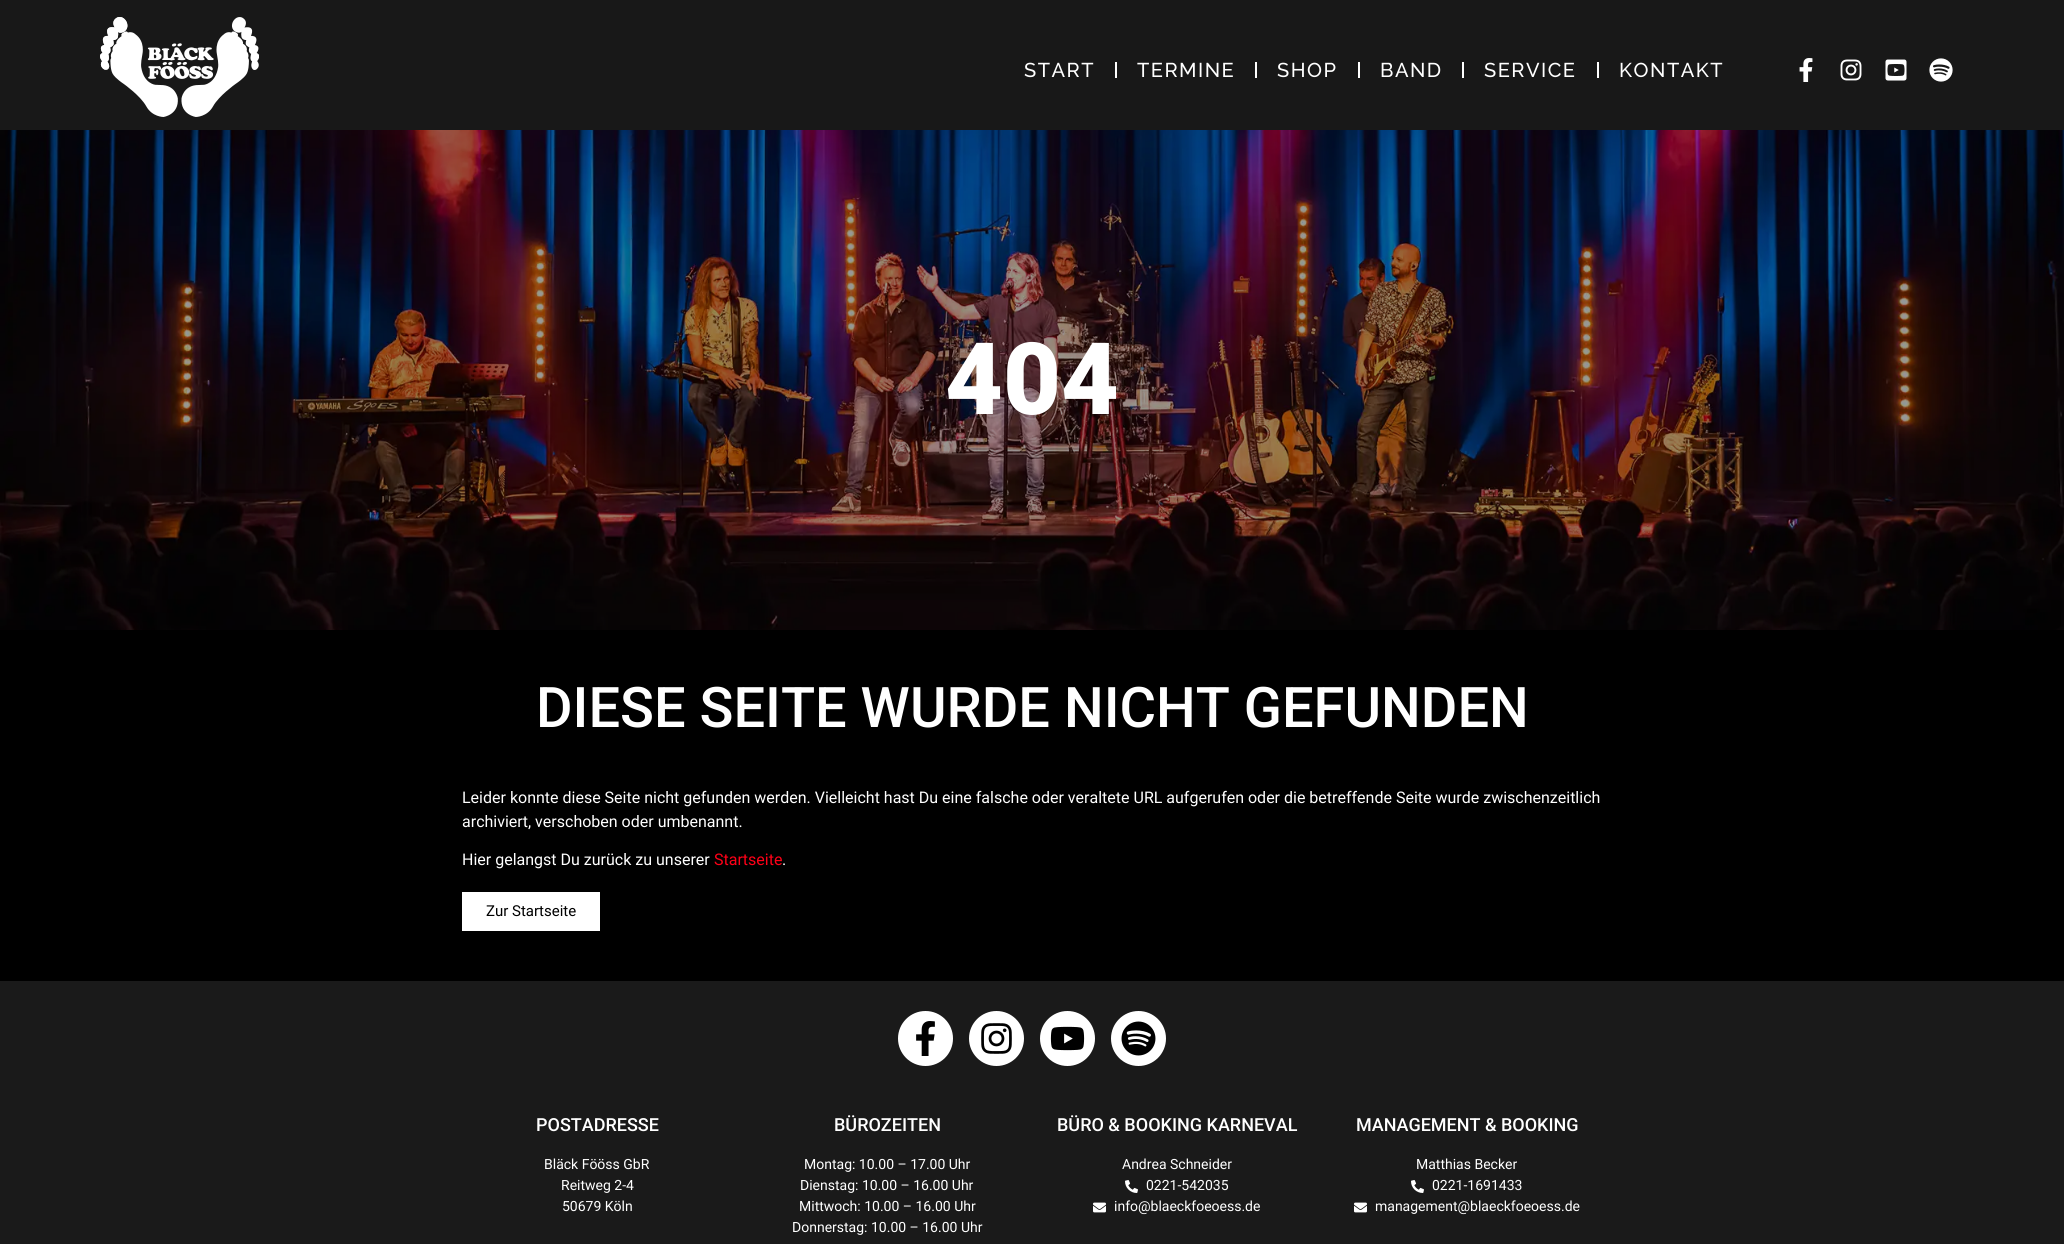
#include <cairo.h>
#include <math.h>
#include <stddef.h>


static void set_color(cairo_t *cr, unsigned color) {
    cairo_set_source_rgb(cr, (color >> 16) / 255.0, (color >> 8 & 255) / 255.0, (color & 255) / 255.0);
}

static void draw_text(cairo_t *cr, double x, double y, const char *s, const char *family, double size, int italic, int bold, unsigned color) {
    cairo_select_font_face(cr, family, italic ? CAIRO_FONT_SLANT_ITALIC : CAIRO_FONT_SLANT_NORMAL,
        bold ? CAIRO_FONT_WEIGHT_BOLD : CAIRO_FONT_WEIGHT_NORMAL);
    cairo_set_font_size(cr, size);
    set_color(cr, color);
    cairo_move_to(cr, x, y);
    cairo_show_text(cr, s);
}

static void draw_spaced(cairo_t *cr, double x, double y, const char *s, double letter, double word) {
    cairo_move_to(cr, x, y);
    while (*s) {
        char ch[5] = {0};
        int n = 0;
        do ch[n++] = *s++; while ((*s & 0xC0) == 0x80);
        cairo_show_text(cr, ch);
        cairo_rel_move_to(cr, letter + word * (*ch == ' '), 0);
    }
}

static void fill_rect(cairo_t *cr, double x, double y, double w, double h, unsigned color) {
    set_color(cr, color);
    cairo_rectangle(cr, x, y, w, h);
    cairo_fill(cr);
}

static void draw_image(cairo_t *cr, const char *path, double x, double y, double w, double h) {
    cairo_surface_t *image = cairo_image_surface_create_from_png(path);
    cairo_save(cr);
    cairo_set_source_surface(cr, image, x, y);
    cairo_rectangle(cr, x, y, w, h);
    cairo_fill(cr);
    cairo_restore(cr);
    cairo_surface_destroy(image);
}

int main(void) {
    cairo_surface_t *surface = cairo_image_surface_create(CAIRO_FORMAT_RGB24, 2064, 1244);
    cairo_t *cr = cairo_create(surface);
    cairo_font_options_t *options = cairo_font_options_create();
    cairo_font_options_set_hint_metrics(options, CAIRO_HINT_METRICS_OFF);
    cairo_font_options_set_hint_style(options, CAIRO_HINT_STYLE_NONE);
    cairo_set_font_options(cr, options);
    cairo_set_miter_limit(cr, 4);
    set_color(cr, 0x000000);
    cairo_paint(cr);
    fill_rect(cr, 0, 0, 2064, 130, 0x181818);
    draw_image(cr, "assets/img1.png", 100, 17, 159, 100);
    cairo_select_font_face(cr, "Raleway Medium", CAIRO_FONT_SLANT_NORMAL, CAIRO_FONT_WEIGHT_NORMAL);
    cairo_set_font_size(cr, 20);
    set_color(cr, 0xFFFFFF);
    draw_spaced(cr, 1024, 77, "START", 1.5, 0);
    fill_rect(cr, 1115, 62, 2, 16, 0xFFFFFF);
    draw_spaced(cr, 1137, 77, "TERMINE", 1.5, 0);
    fill_rect(cr, 1255, 62, 2, 16, 0xFFFFFF);
    draw_spaced(cr, 1277, 77, "SHOP", 1.5, 0);
    fill_rect(cr, 1358, 62, 2, 16, 0xFFFFFF);
    draw_spaced(cr, 1380, 77, "BAND", 1.5, 0);
    fill_rect(cr, 1462, 62, 2, 16, 0xFFFFFF);
    draw_spaced(cr, 1484, 77, "SERVICE", 1.5, 0);
    fill_rect(cr, 1597, 62, 2, 16, 0xFFFFFF);
    draw_spaced(cr, 1619, 77, "KONTAKT", 1.5, 0);
    draw_image(cr, "assets/img2.png", 1799, 58, 14, 24);
    draw_image(cr, "assets/img3.png", 1840, 59, 22, 22);
    draw_image(cr, "assets/img4.png", 1885, 59, 22, 22);
    draw_image(cr, "assets/img5.png", 1929, 58, 24, 24);
    draw_image(cr, "assets/img6.png", 0, 130, 2064, 500);
    draw_text(cr, 945, 414, "404", "Roboto Black", 100, 0, 0, 0xFFFFFF);
    draw_text(cr, 536, 727, "DIESE SEITE WURDE NICHT GEFUNDEN", "Roboto Medium", 56, 0, 0, 0xFFFFFF);
    draw_text(cr, 462, 803, "Leider konnte diese Seite nicht gefunden werden. Vielleicht hast Du eine falsche oder veraltete URL aufgerufen oder die betreffende Seite wurde zwischenzeitlich", "Roboto", 16, 0, 0, 0xFFFFFF);
    draw_text(cr, 462, 827, "archiviert, verschoben oder umbenannt.", "Roboto", 16, 0, 0, 0xFFFFFF);
    draw_text(cr, 462, 865, "Hier gelangst Du zurück zu unserer", "Roboto", 16, 0, 0, 0xFFFFFF);
    draw_text(cr, 714, 865, "Startseite", "Roboto", 16, 0, 0, 0xFF0017);
    draw_text(cr, 782, 865, ".", "Roboto", 16, 0, 0, 0xFFFFFF);
    fill_rect(cr, 462, 892, 138, 39, 0xFFFFFF);
    draw_text(cr, 486, 916, "Zur Startseite", "Roboto", 15, 0, 0, 0x000000);
    fill_rect(cr, 0, 981, 2064, 263, 0x1A1A1A);
    set_color(cr, 0xFFFFFF);
    cairo_new_path(cr);
    cairo_arc(cr, 925.5, 1038.5, 27.5, 0, 2 * M_PI);
    cairo_fill(cr);
    draw_image(cr, "assets/img7.png", 916, 1021, 19, 35);
    cairo_arc(cr, 996.5, 1038.5, 27.5, 0, 2 * M_PI);
    cairo_fill(cr);
    draw_image(cr, "assets/img8.png", 981, 1023, 31, 31);
    cairo_arc(cr, 1067.5, 1038.5, 27.5, 0, 2 * M_PI);
    cairo_fill(cr);
    draw_image(cr, "assets/img9.png", 1050, 1026, 35, 25);
    cairo_arc(cr, 1138.5, 1038.5, 27.5, 0, 2 * M_PI);
    cairo_fill(cr);
    draw_image(cr, "assets/img10.png", 1121, 1021, 35, 35);
    draw_text(cr, 536, 1131, "POSTADRESSE", "Roboto Medium", 18, 0, 0, 0xFFFFFF);
    draw_text(cr, 544, 1169, "Bläck Fööss GbR", "Roboto", 14, 0, 0, 0xFFFFFF);
    draw_text(cr, 561, 1190, "Reitweg 2-4", "Roboto", 14, 0, 0, 0xFFFFFF);
    draw_text(cr, 562, 1211, "50679 Köln", "Roboto", 14, 0, 0, 0xFFFFFF);
    draw_text(cr, 834, 1131, "BÜROZEITEN", "Roboto Medium", 18, 0, 0, 0xFFFFFF);
    draw_text(cr, 804, 1169, "Montag: 10.00 – 17.00 Uhr", "Roboto", 14, 0, 0, 0xFFFFFF);
    draw_text(cr, 800, 1190, "Dienstag: 10.00 – 16.00 Uhr", "Roboto", 14, 0, 0, 0xFFFFFF);
    draw_text(cr, 799, 1211, "Mittwoch: 10.00 – 16.00 Uhr", "Roboto", 14, 0, 0, 0xFFFFFF);
    draw_text(cr, 792, 1232, "Donnerstag: 10.00 – 16.00 Uhr", "Roboto", 14, 0, 0, 0xFFFFFF);
    draw_text(cr, 1057, 1131, "BÜRO & BOOKING KARNEVAL", "Roboto Medium", 18, 0, 0, 0xFFFFFF);
    draw_text(cr, 1122, 1169, "Andrea Schneider", "Roboto", 14, 0, 0, 0xFFFFFF);
    draw_image(cr, "assets/img11.png", 1125, 1180, 13, 13);
    draw_text(cr, 1146, 1190, "0221-542035", "Roboto", 14, 0, 0, 0xFFFFFF);
    draw_image(cr, "assets/img12.png", 1093, 1202, 13, 11);
    draw_text(cr, 1114, 1211, "info@blaeckfoeoess.de", "Roboto", 14, 0, 0, 0xFFFFFF);
    draw_text(cr, 1356, 1131, "MANAGEMENT & BOOKING", "Roboto Medium", 18, 0, 0, 0xFFFFFF);
    draw_text(cr, 1416, 1169, "Matthias Becker", "Roboto", 14, 0, 0, 0xFFFFFF);
    draw_image(cr, "assets/img11.png", 1411, 1180, 13, 13);
    draw_text(cr, 1432, 1190, "0221-1691433", "Roboto", 14, 0, 0, 0xFFFFFF);
    draw_image(cr, "assets/img12.png", 1354, 1202, 13, 11);
    draw_text(cr, 1375, 1211, "management@blaeckfoeoess.de", "Roboto", 14, 0, 0, 0xFFFFFF);
    cairo_surface_write_to_png(surface, "output.png");
    cairo_font_options_destroy(options);
    cairo_destroy(cr);
    cairo_surface_destroy(surface);
    return 0;
}
